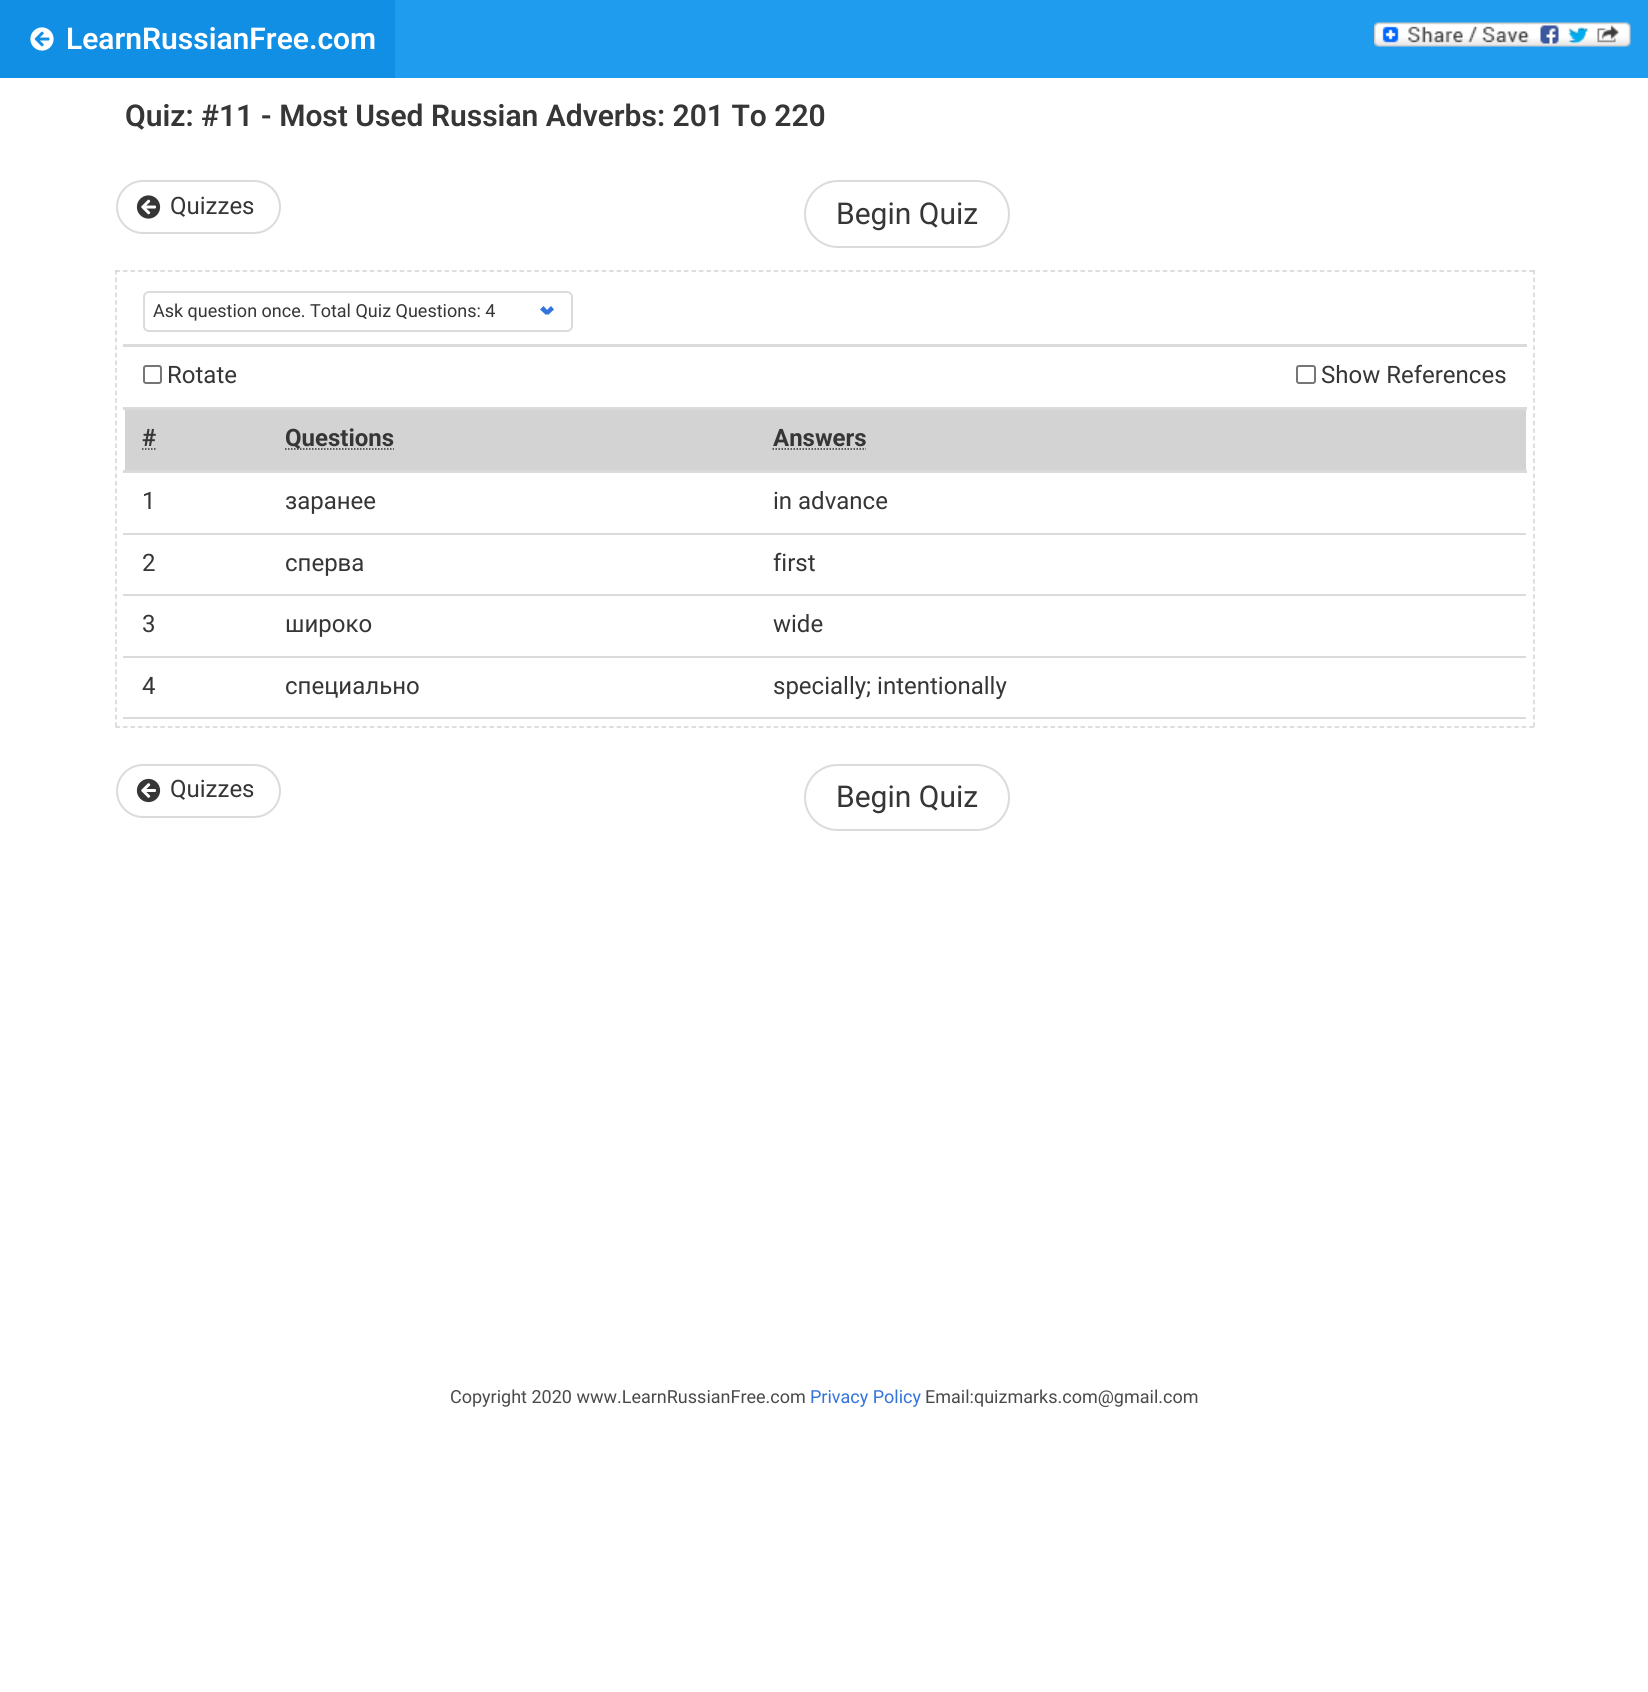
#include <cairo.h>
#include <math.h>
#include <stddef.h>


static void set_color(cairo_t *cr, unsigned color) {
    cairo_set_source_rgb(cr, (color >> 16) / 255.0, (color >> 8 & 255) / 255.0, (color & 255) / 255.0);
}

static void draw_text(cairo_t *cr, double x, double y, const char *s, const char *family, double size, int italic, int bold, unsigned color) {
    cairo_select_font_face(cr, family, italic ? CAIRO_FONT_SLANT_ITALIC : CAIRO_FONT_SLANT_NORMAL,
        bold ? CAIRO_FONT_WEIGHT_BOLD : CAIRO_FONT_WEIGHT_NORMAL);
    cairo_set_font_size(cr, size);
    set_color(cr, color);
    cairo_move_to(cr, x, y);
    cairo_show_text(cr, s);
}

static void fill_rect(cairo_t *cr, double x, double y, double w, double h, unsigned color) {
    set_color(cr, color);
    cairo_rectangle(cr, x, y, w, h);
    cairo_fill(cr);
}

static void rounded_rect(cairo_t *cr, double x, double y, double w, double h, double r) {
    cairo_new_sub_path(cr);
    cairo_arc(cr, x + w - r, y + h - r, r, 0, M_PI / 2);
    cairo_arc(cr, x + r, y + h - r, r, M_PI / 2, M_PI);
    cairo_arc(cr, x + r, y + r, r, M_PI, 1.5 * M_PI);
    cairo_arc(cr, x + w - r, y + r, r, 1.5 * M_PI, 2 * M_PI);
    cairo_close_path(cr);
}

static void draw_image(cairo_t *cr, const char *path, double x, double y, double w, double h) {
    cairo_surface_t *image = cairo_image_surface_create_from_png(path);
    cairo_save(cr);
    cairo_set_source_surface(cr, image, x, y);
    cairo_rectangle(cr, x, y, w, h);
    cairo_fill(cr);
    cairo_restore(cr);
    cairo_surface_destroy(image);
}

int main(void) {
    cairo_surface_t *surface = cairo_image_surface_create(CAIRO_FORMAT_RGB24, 1648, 1692);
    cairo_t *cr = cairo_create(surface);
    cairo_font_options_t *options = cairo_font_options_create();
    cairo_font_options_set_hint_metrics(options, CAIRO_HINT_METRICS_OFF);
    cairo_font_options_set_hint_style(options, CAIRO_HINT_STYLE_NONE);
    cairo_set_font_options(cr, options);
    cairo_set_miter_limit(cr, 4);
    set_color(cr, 0xFFFFFF);
    cairo_paint(cr);
    fill_rect(cr, 395, 0, 1253, 78, 0x209CEE);
    fill_rect(cr, 0, 0, 395, 78, 0x118FE4);
    draw_image(cr, "assets/img1.png", 30, 27, 24, 24);
    draw_text(cr, 66, 49, "LearnRussianFree.com", "Roboto SemiBold", 30, 0, 0, 0xFFFFFF);
    draw_image(cr, "assets/img2.png", 1374, 22, 257, 25);
    draw_text(cr, 125, 126, "Quiz: #11 - Most Used Russian Adverbs: 201 To 220", "Roboto SemiBold", 30, 0, 0, 0x363636);
    rounded_rect(cr, 117, 181, 163, 52, 26);
    set_color(cr, 0xDBDBDB);
    cairo_stroke(cr);
    draw_image(cr, "assets/img3.png", 136, 195, 25, 24);
    draw_text(cr, 170, 214, "Quizzes", "Roboto", 24, 0, 0, 0x363636);
    rounded_rect(cr, 805, 181, 204, 66, 33);
    set_color(cr, 0xDBDBDB);
    cairo_stroke(cr);
    draw_text(cr, 836, 224, "Begin Quiz", "Roboto", 30, 0, 0, 0x363636);
    cairo_new_path(cr);
    cairo_move_to(cr, 115.5, 271);
    cairo_line_to(cr, 1534.5, 271);
    set_color(cr, 0xD3D3D3);
    cairo_set_line_width(cr, 1.5);
    cairo_set_dash(cr, (double[]){4.5, 2.98}, 2, 0);
    cairo_stroke(cr);
    cairo_new_path(cr);
    cairo_move_to(cr, 1534, 270);
    cairo_line_to(cr, 1534, 727.5);
    cairo_set_dash(cr, (double[]){4.5, 3.04}, 2, 0);
    cairo_stroke(cr);
    cairo_new_path(cr);
    cairo_move_to(cr, 115.5, 727);
    cairo_line_to(cr, 1534.5, 727);
    cairo_set_dash(cr, (double[]){4.5, 2.98}, 2, 0);
    cairo_stroke(cr);
    cairo_new_path(cr);
    cairo_move_to(cr, 116, 270);
    cairo_line_to(cr, 116, 727.5);
    cairo_set_dash(cr, (double[]){4.5, 3.04}, 2, 0);
    cairo_stroke(cr);
    fill_rect(cr, 123, 344, 1404, 3, 0xDBDBDB);
    rounded_rect(cr, 144, 292, 428, 39, 5);
    cairo_set_line_width(cr, 2);
    cairo_set_dash(cr, NULL, 0, 0);
    cairo_stroke(cr);
    draw_text(cr, 153, 317, "Ask question once. Total Quiz Questions: 4", "Roboto", 18, 0, 0, 0x363636);
    set_color(cr, 0x3273DC);
    cairo_new_path(cr);
    cairo_move_to(cr, 545, 312);
    cairo_line_to(cr, 551, 306);
    cairo_line_to(cr, 554, 309.5);
    cairo_line_to(cr, 548, 315);
    cairo_close_path(cr);
    cairo_fill(cr);
    cairo_new_path(cr);
    cairo_move_to(cr, 540, 309.5);
    cairo_line_to(cr, 543.5, 306);
    cairo_line_to(cr, 549, 312);
    cairo_line_to(cr, 546, 315);
    cairo_close_path(cr);
    cairo_fill(cr);
    fill_rect(cr, 123, 407, 1404, 3, 0xDBDBDB);
    rounded_rect(cr, 144, 366, 17, 17, 2);
    set_color(cr, 0x767676);
    cairo_stroke(cr);
    draw_text(cr, 167, 383, "Rotate", "Roboto", 24, 0, 0, 0x363636);
    rounded_rect(cr, 1297, 366, 18, 17, 2);
    set_color(cr, 0x767676);
    cairo_stroke(cr);
    draw_text(cr, 1321, 383, "Show References", "Roboto", 24, 0, 0, 0x363636);
    fill_rect(cr, 125, 410, 1401, 60, 0xD3D3D3);
    draw_text(cr, 142, 446, "#", "Roboto", 24, 0, 1, 0x363636);
    cairo_new_path(cr);
    cairo_move_to(cr, 142, 449);
    cairo_line_to(cr, 156, 449);
    cairo_set_line_width(cr, 1.5);
    cairo_set_dash(cr, (double[]){1.5, 1.5}, 2, 0);
    cairo_stroke(cr);
    cairo_new_path(cr);
    cairo_move_to(cr, 285, 449);
    cairo_line_to(cr, 394, 449);
    cairo_stroke(cr);
    draw_text(cr, 285, 446, "Questions", "Roboto", 24, 0, 1, 0x363636);
    fill_rect(cr, 123, 470, 1404, 3, 0xDBDBDB);
    draw_text(cr, 773, 446, "Answers", "Roboto", 24, 0, 1, 0x363636);
    cairo_new_path(cr);
    cairo_move_to(cr, 772.5, 449);
    cairo_line_to(cr, 866, 449);
    cairo_stroke(cr);
    draw_text(cr, 142, 509, "1", "Roboto", 24, 0, 0, 0x363636);
    draw_text(cr, 285, 509, "заранее", "Roboto", 24, 0, 0, 0x363636);
    fill_rect(cr, 123, 533, 1403, 2, 0xDBDBDB);
    draw_text(cr, 773, 509, "in advance", "Roboto", 24, 0, 0, 0x363636);
    draw_text(cr, 142, 571, "2", "Roboto", 24, 0, 0, 0x363636);
    draw_text(cr, 285, 571, "сперва", "Roboto", 24, 0, 0, 0x363636);
    fill_rect(cr, 123, 594, 1403, 2, 0xDBDBDB);
    draw_text(cr, 773, 571, "first", "Roboto", 24, 0, 0, 0x363636);
    draw_text(cr, 142, 632, "3", "Roboto", 24, 0, 0, 0x363636);
    draw_text(cr, 285, 632, "широко", "Roboto", 24, 0, 0, 0x363636);
    fill_rect(cr, 123, 656, 1403, 2, 0xDBDBDB);
    draw_text(cr, 773, 632, "wide", "Roboto", 24, 0, 0, 0x363636);
    draw_text(cr, 142, 694, "4", "Roboto", 24, 0, 0, 0x363636);
    draw_text(cr, 285, 694, "специально", "Roboto", 24, 0, 0, 0x363636);
    fill_rect(cr, 123, 717, 1403, 2, 0xDBDBDB);
    draw_text(cr, 773, 694, "specially; intentionally", "Roboto", 24, 0, 0, 0x363636);
    rounded_rect(cr, 117, 765, 163, 52, 26);
    set_color(cr, 0xDBDBDB);
    cairo_set_line_width(cr, 2);
    cairo_set_dash(cr, NULL, 0, 0);
    cairo_stroke(cr);
    draw_image(cr, "assets/img4.png", 136, 778, 25, 25);
    draw_text(cr, 170, 797, "Quizzes", "Roboto", 24, 0, 0, 0x363636);
    rounded_rect(cr, 805, 765, 204, 65, 32.5);
    set_color(cr, 0xDBDBDB);
    cairo_stroke(cr);
    draw_text(cr, 836, 807, "Begin Quiz", "Roboto", 30, 0, 0, 0x363636);
    draw_text(cr, 450, 1403, "Copyright 2020 www.LearnRussianFree.com", "Roboto", 18, 0, 0, 0x4A4A4A);
    draw_text(cr, 810, 1403, "Privacy Policy", "Roboto", 18, 0, 0, 0x3273DC);
    draw_text(cr, 925, 1403, "Email:quizmarks.com@gmail.com", "Roboto", 18, 0, 0, 0x4A4A4A);
    cairo_surface_write_to_png(surface, "output.png");
    cairo_font_options_destroy(options);
    cairo_destroy(cr);
    cairo_surface_destroy(surface);
    return 0;
}
